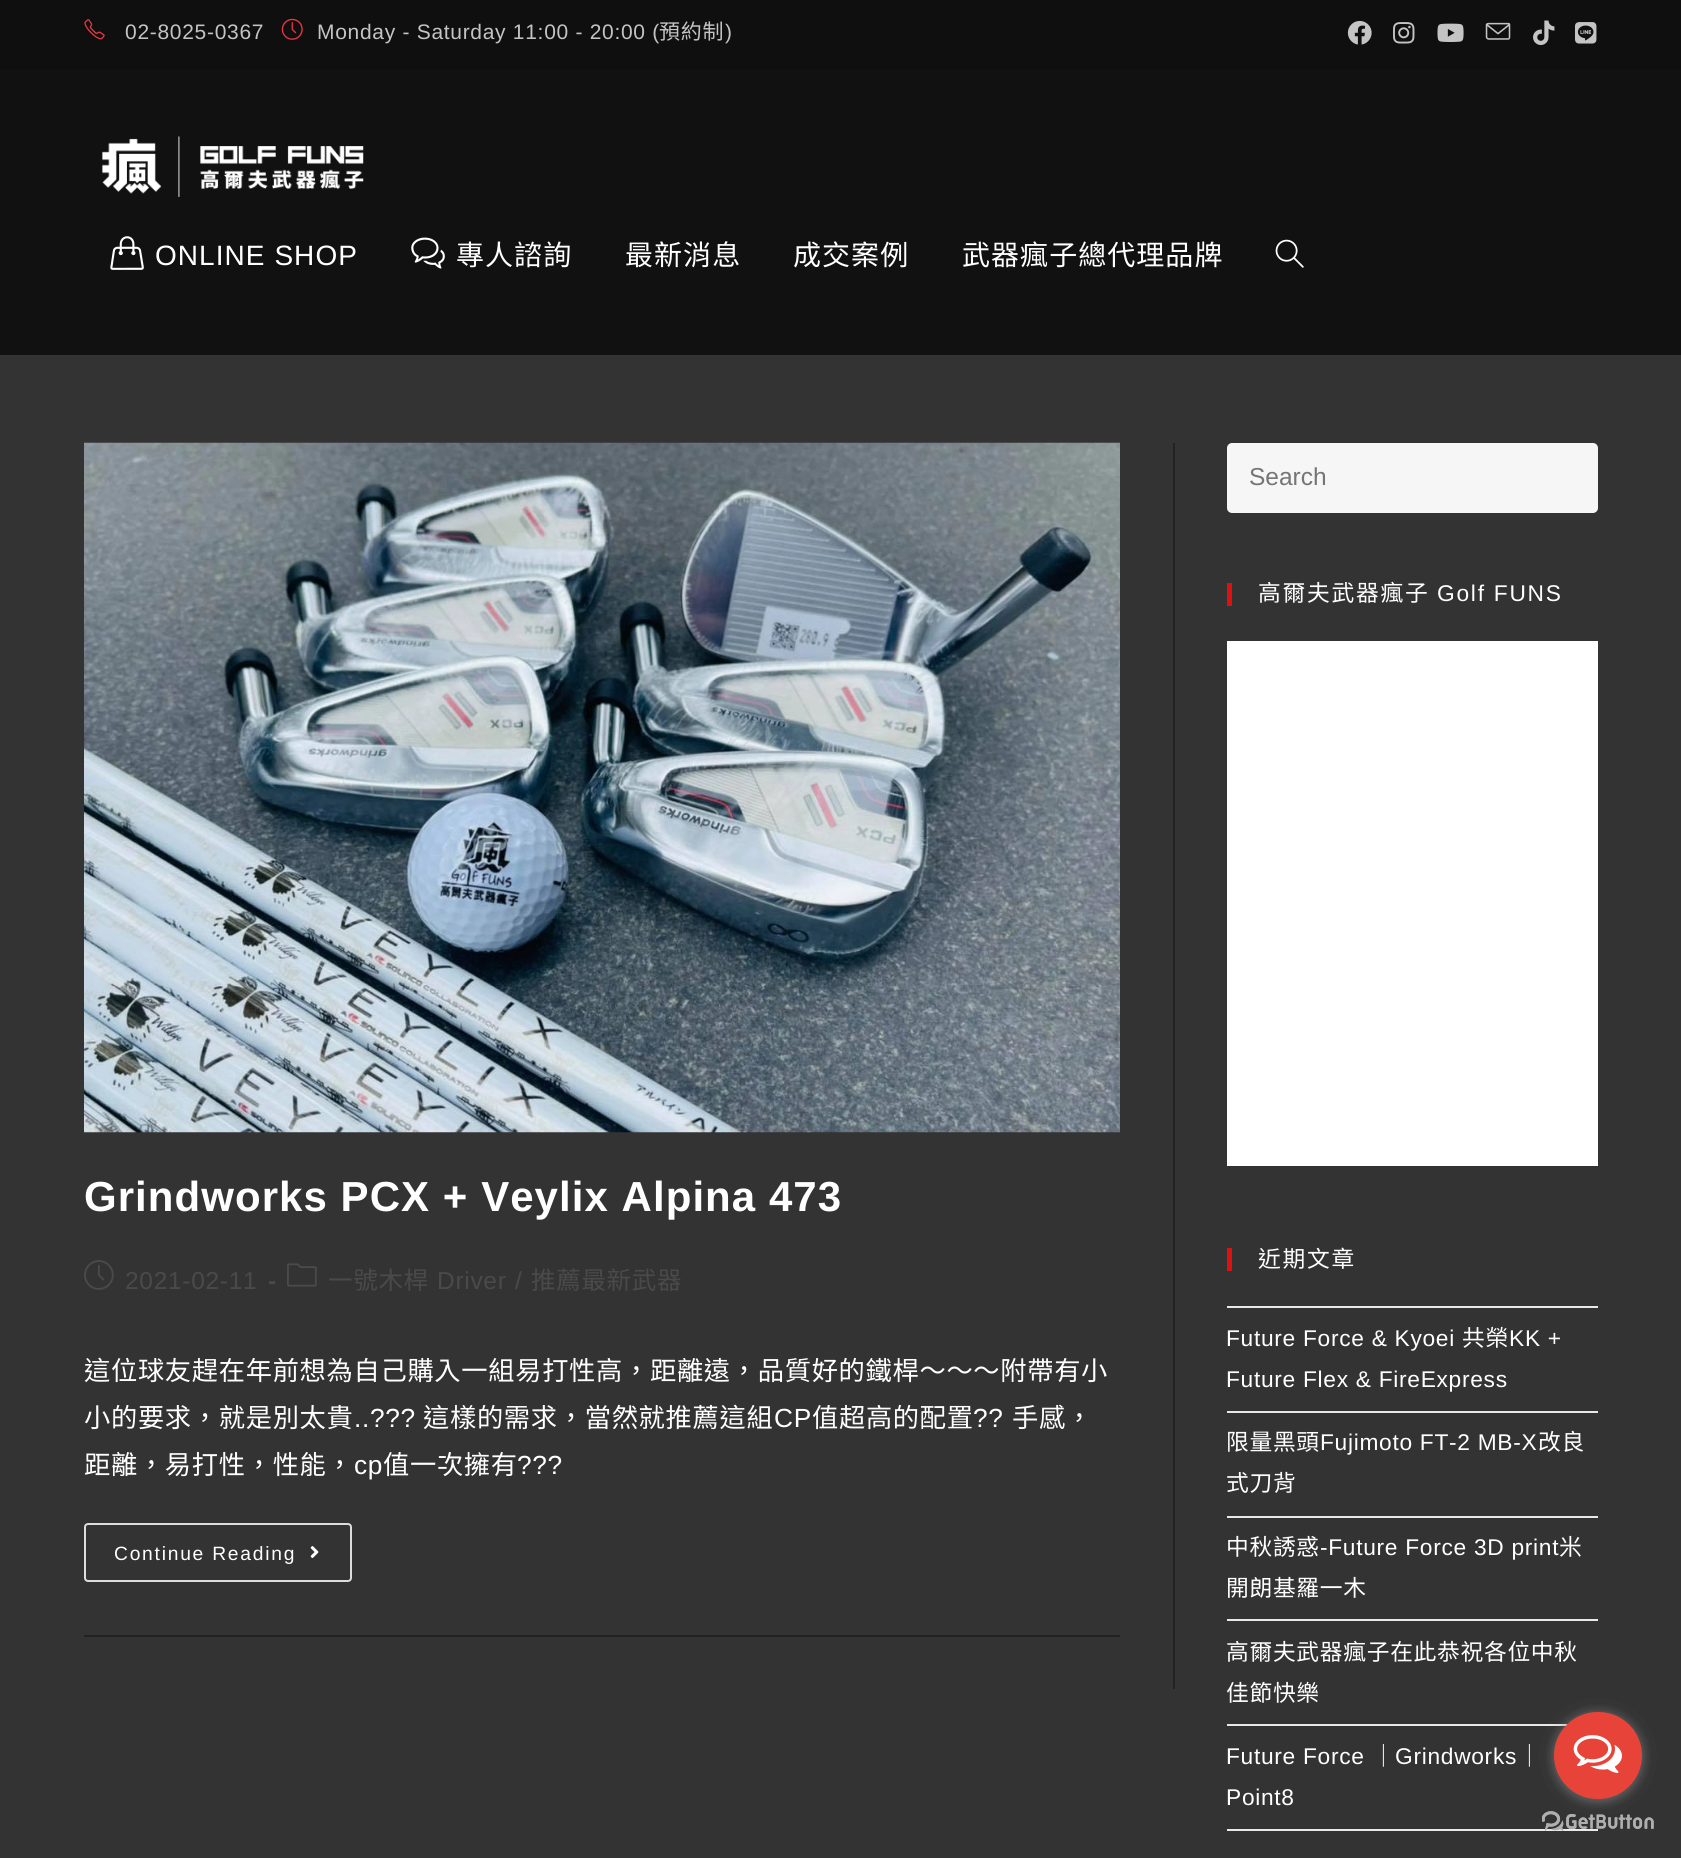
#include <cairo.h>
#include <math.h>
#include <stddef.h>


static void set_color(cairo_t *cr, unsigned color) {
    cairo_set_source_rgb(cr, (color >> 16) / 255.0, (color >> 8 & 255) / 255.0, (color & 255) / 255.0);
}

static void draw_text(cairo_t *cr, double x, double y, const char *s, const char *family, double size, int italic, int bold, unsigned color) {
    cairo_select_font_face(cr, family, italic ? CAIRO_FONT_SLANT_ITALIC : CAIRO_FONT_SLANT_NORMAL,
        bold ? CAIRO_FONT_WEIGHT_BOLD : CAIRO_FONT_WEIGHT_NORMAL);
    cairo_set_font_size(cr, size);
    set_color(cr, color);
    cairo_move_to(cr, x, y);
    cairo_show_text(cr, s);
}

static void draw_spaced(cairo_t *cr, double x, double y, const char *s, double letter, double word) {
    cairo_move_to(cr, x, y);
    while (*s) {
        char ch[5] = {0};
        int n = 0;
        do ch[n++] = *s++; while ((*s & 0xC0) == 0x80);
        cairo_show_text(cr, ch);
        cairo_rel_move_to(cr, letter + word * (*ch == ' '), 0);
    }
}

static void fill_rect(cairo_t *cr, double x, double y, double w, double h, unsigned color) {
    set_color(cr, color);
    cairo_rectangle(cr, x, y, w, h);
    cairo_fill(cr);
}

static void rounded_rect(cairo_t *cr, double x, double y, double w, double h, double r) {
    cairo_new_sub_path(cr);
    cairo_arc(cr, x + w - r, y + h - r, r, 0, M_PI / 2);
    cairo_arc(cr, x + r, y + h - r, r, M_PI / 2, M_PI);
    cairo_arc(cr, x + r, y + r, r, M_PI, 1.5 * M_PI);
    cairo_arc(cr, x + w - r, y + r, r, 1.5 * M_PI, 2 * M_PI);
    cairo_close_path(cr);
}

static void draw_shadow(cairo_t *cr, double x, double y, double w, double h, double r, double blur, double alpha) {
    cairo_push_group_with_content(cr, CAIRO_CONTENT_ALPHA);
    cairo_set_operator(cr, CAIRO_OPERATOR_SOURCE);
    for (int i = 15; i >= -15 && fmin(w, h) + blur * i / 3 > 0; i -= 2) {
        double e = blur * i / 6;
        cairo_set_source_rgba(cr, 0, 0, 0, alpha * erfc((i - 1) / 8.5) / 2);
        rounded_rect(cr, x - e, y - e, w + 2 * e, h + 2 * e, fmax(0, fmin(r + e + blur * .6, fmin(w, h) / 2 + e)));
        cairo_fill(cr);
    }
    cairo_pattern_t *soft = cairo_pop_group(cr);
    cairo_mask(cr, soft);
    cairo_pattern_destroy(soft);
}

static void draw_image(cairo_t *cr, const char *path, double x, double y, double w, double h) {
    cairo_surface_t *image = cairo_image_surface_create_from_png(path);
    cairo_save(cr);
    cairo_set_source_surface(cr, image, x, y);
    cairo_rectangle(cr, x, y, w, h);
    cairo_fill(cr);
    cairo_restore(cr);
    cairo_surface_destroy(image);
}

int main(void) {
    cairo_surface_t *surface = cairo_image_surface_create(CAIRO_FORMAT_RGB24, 1681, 1858);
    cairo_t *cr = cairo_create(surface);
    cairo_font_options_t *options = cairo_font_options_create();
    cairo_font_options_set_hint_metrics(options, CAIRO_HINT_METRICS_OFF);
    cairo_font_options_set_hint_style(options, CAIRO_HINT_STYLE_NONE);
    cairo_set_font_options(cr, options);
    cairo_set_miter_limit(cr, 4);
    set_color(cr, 0x333333);
    cairo_paint(cr);
    fill_rect(cr, 0, 0, 1681, 69, 0x0F0F0F);
    draw_image(cr, "assets/img1.png", 84, 19, 21, 21);
    cairo_select_font_face(cr, "Liberation Sans", CAIRO_FONT_SLANT_NORMAL, CAIRO_FONT_WEIGHT_NORMAL);
    cairo_set_font_size(cr, 21);
    set_color(cr, 0xC4C4C4);
    draw_spaced(cr, 125, 39, "02-8025-0367", 0.7, 0);
    draw_image(cr, "assets/img2.png", 281, 18, 22, 22);
    draw_spaced(cr, 317, 39, "Monday - Saturday 11:00 - 20:00 (", 0.7, 0);
    cairo_select_font_face(cr, "Noto Sans CJK TC", CAIRO_FONT_SLANT_NORMAL, CAIRO_FONT_WEIGHT_NORMAL);
    draw_spaced(cr, 659, 39, "預約制", 0.7, 0);
    cairo_select_font_face(cr, "Liberation Sans", CAIRO_FONT_SLANT_NORMAL, CAIRO_FONT_WEIGHT_NORMAL);
    draw_spaced(cr, 725, 39, ")", 0.7, 0);
    draw_image(cr, "assets/img3.png", 1347, 20, 25, 25);
    draw_image(cr, "assets/img4.png", 1393, 22, 22, 22);
    draw_image(cr, "assets/img5.png", 1437, 23, 27, 19);
    draw_image(cr, "assets/img6.png", 1485, 22, 26, 18);
    draw_image(cr, "assets/img7.png", 1533, 20, 22, 26);
    draw_image(cr, "assets/img8.png", 1575, 22, 22, 22);
    fill_rect(cr, 0, 69, 1681, 286, 0x111111);
    draw_image(cr, "assets/img9.png", 102, 136, 262, 61);
    draw_image(cr, "assets/img10.png", 110, 236, 34, 34);
    cairo_set_font_size(cr, 28);
    set_color(cr, 0xFFFFFF);
    draw_spaced(cr, 155, 265, "ONLINE SHOP", 1.05, 0);
    draw_image(cr, "assets/img11.png", 411, 237, 34, 32);
    cairo_select_font_face(cr, "Noto Sans CJK TC", CAIRO_FONT_SLANT_NORMAL, CAIRO_FONT_WEIGHT_NORMAL);
    draw_spaced(cr, 456, 265, "專人諮詢", 1.05, 0);
    draw_spaced(cr, 625, 265, "最新消息", 1.05, 0);
    draw_spaced(cr, 793, 265, "成交案例", 1.05, 0);
    draw_spaced(cr, 962, 265, "武器瘋子總代理品牌", 1.05, 0);
    draw_image(cr, "assets/img12.png", 1275, 239, 29, 29);
    fill_rect(cr, 1173, 443, 2, 1246, 0x222222);
    fill_rect(cr, 84, 1635, 1036, 2, 0x222222);
    draw_image(cr, "assets/img13.png", 84, 442, 1036, 691);
    cairo_select_font_face(cr, "Liberation Sans", CAIRO_FONT_SLANT_NORMAL, CAIRO_FONT_WEIGHT_BOLD);
    cairo_set_font_size(cr, 42);
    set_color(cr, 0xFFFFFF);
    draw_spaced(cr, 84, 1211, "Grindworks PCX + Veylix Alpina 473", 1.05, 0);
    draw_image(cr, "assets/img14.png", 84, 1260, 30, 30);
    cairo_select_font_face(cr, "Liberation Sans", CAIRO_FONT_SLANT_NORMAL, CAIRO_FONT_WEIGHT_NORMAL);
    cairo_set_font_size(cr, 24.5);
    set_color(cr, 0x4A4A4A);
    draw_spaced(cr, 125, 1289, "2021-02-11", 0.7, 0);
    cairo_select_font_face(cr, "Liberation Sans", CAIRO_FONT_SLANT_NORMAL, CAIRO_FONT_WEIGHT_BOLD);
    draw_spaced(cr, 268, 1289, "-", 0.7, 0);
    draw_image(cr, "assets/img15.png", 287, 1263, 30, 24);
    cairo_select_font_face(cr, "Noto Sans CJK TC", CAIRO_FONT_SLANT_NORMAL, CAIRO_FONT_WEIGHT_NORMAL);
    draw_spaced(cr, 328, 1289, "一號木桿", 0.7, 0);
    cairo_select_font_face(cr, "Liberation Sans", CAIRO_FONT_SLANT_NORMAL, CAIRO_FONT_WEIGHT_NORMAL);
    draw_spaced(cr, 437, 1289, "Driver", 0.7, 0);
    draw_spaced(cr, 515, 1289, "/", 0.7, 0);
    cairo_select_font_face(cr, "Noto Sans CJK TC", CAIRO_FONT_SLANT_NORMAL, CAIRO_FONT_WEIGHT_NORMAL);
    draw_spaced(cr, 531, 1289, "推薦最新武器", 0.7, 0);
    cairo_set_font_size(cr, 26.25);
    set_color(cr, 0xFFFFFF);
    draw_spaced(cr, 84, 1380, "這位球友趕在年前想為自己購入一組易打性高，距離遠，品質好的鐵桿～～～附帶有小", 0.7, 0);
    draw_spaced(cr, 84, 1427, "小的要求，就是別太貴", 0.7, 0);
    cairo_select_font_face(cr, "Liberation Sans", CAIRO_FONT_SLANT_NORMAL, CAIRO_FONT_WEIGHT_NORMAL);
    draw_spaced(cr, 354, 1427, "..?\077?", 0.7, 0);
    cairo_select_font_face(cr, "Noto Sans CJK TC", CAIRO_FONT_SLANT_NORMAL, CAIRO_FONT_WEIGHT_NORMAL);
    draw_spaced(cr, 423, 1427, "這樣的需求，當然就推薦這組", 0.7, 0);
    cairo_select_font_face(cr, "Liberation Sans", CAIRO_FONT_SLANT_NORMAL, CAIRO_FONT_WEIGHT_NORMAL);
    draw_spaced(cr, 774, 1427, "CP", 0.7, 0);
    cairo_select_font_face(cr, "Noto Sans CJK TC", CAIRO_FONT_SLANT_NORMAL, CAIRO_FONT_WEIGHT_NORMAL);
    draw_spaced(cr, 812, 1427, "值超高的配置", 0.7, 0);
    cairo_select_font_face(cr, "Liberation Sans", CAIRO_FONT_SLANT_NORMAL, CAIRO_FONT_WEIGHT_NORMAL);
    draw_spaced(cr, 973, 1427, "?\077", 0.7, 0);
    cairo_select_font_face(cr, "Noto Sans CJK TC", CAIRO_FONT_SLANT_NORMAL, CAIRO_FONT_WEIGHT_NORMAL);
    draw_spaced(cr, 1012, 1427, "手感，", 0.7, 0);
    draw_spaced(cr, 84, 1474, "距離，易打性，性能，", 0.7, 0);
    cairo_select_font_face(cr, "Liberation Sans", CAIRO_FONT_SLANT_NORMAL, CAIRO_FONT_WEIGHT_NORMAL);
    draw_spaced(cr, 354, 1474, "cp", 0.7, 0);
    cairo_select_font_face(cr, "Noto Sans CJK TC", CAIRO_FONT_SLANT_NORMAL, CAIRO_FONT_WEIGHT_NORMAL);
    draw_spaced(cr, 383, 1474, "值一次擁有", 0.7, 0);
    cairo_select_font_face(cr, "Liberation Sans", CAIRO_FONT_SLANT_NORMAL, CAIRO_FONT_WEIGHT_NORMAL);
    draw_spaced(cr, 517, 1474, "?\077?", 0.7, 0);
    rounded_rect(cr, 85, 1524, 266, 57, 3);
    set_color(cr, 0xDDDDDD);
    cairo_stroke(cr);
    cairo_set_font_size(cr, 19.25);
    set_color(cr, 0xFFFFFF);
    draw_spaced(cr, 114, 1560, "Continue Reading", 1.75, 0);
    draw_image(cr, "assets/img16.png", 310, 1546, 9, 12);
    set_color(cr, 0xF6F6F6);
    rounded_rect(cr, 1228, 444, 369, 68, 4);
    cairo_fill_preserve(cr);
    cairo_stroke(cr);
    draw_text(cr, 1249, 485, "Search", "Liberation Sans", 24.5, 0, 0, 0x757575);
    fill_rect(cr, 1227, 583, 5, 23, 0xDD1111);
    cairo_select_font_face(cr, "Noto Sans CJK TC", CAIRO_FONT_SLANT_NORMAL, CAIRO_FONT_WEIGHT_NORMAL);
    cairo_set_font_size(cr, 22.75);
    set_color(cr, 0xFFFFFF);
    draw_spaced(cr, 1258, 601, "高爾夫武器瘋子", 1.75, 0);
    cairo_select_font_face(cr, "Liberation Sans", CAIRO_FONT_SLANT_NORMAL, CAIRO_FONT_WEIGHT_NORMAL);
    draw_spaced(cr, 1437, 601, "Golf FUNS", 1.75, 0);
    fill_rect(cr, 1227, 641, 371, 525, 0xFFFFFF);
    fill_rect(cr, 1227, 1248, 5, 23, 0xDD1111);
    cairo_select_font_face(cr, "Noto Sans CJK TC", CAIRO_FONT_SLANT_NORMAL, CAIRO_FONT_WEIGHT_NORMAL);
    set_color(cr, 0xFFFFFF);
    draw_spaced(cr, 1258, 1267, "近期文章", 1.75, 0);
    fill_rect(cr, 1227, 1306, 371, 2, 0xE9E9E9);
    fill_rect(cr, 1227, 1411, 371, 2, 0xE9E9E9);
    cairo_select_font_face(cr, "Liberation Sans", CAIRO_FONT_SLANT_NORMAL, CAIRO_FONT_WEIGHT_NORMAL);
    set_color(cr, 0xFFFFFF);
    draw_spaced(cr, 1226, 1346, "Future Force & Kyoei", 0.7, 0);
    cairo_select_font_face(cr, "Noto Sans CJK TC", CAIRO_FONT_SLANT_NORMAL, CAIRO_FONT_WEIGHT_NORMAL);
    draw_spaced(cr, 1462, 1346, "共榮", 0.7, 0);
    cairo_select_font_face(cr, "Liberation Sans", CAIRO_FONT_SLANT_NORMAL, CAIRO_FONT_WEIGHT_NORMAL);
    draw_spaced(cr, 1509, 1346, "KK +", 0.7, 0);
    draw_spaced(cr, 1226, 1387, "Future Flex & FireExpress", 0.7, 0);
    fill_rect(cr, 1227, 1516, 371, 2, 0xE9E9E9);
    cairo_select_font_face(cr, "Noto Sans CJK TC", CAIRO_FONT_SLANT_NORMAL, CAIRO_FONT_WEIGHT_NORMAL);
    set_color(cr, 0xFFFFFF);
    draw_spaced(cr, 1226, 1450, "限量黑頭", 0.7, 0);
    cairo_select_font_face(cr, "Liberation Sans", CAIRO_FONT_SLANT_NORMAL, CAIRO_FONT_WEIGHT_NORMAL);
    draw_spaced(cr, 1320, 1450, "Fujimoto FT-2 MB-X", 0.7, 0);
    cairo_select_font_face(cr, "Noto Sans CJK TC", CAIRO_FONT_SLANT_NORMAL, CAIRO_FONT_WEIGHT_NORMAL);
    draw_spaced(cr, 1538, 1450, "改良", 0.7, 0);
    draw_spaced(cr, 1226, 1491, "式刀背", 0.7, 0);
    fill_rect(cr, 1227, 1619, 371, 2, 0xE9E9E9);
    set_color(cr, 0xFFFFFF);
    draw_spaced(cr, 1226, 1555, "中秋誘惑", 0.7, 0);
    cairo_select_font_face(cr, "Liberation Sans", CAIRO_FONT_SLANT_NORMAL, CAIRO_FONT_WEIGHT_NORMAL);
    draw_spaced(cr, 1320, 1555, "-Future Force 3D print", 0.7, 0);
    cairo_select_font_face(cr, "Noto Sans CJK TC", CAIRO_FONT_SLANT_NORMAL, CAIRO_FONT_WEIGHT_NORMAL);
    draw_spaced(cr, 1559, 1555, "米", 0.7, 0);
    draw_spaced(cr, 1226, 1596, "開朗基羅一木", 0.7, 0);
    fill_rect(cr, 1227, 1724, 341, 2, 0xE9E9E9);
    set_color(cr, 0xFFFFFF);
    draw_spaced(cr, 1226, 1660, "高爾夫武器瘋子在此恭祝各位中秋", 0.7, 0);
    draw_spaced(cr, 1226, 1701, "佳節快樂", 0.7, 0);
    fill_rect(cr, 1227, 1829, 371, 2, 0xE9E9E9);
    cairo_select_font_face(cr, "Liberation Sans", CAIRO_FONT_SLANT_NORMAL, CAIRO_FONT_WEIGHT_NORMAL);
    set_color(cr, 0xFFFFFF);
    draw_spaced(cr, 1226, 1764, "Future Force", 0.7, 0);
    cairo_select_font_face(cr, "Noto Sans CJK TC", CAIRO_FONT_SLANT_NORMAL, CAIRO_FONT_WEIGHT_NORMAL);
    draw_spaced(cr, 1372, 1764, "｜", 0.7, 0);
    cairo_select_font_face(cr, "Liberation Sans", CAIRO_FONT_SLANT_NORMAL, CAIRO_FONT_WEIGHT_NORMAL);
    draw_spaced(cr, 1395, 1764, "Grindworks", 0.7, 0);
    cairo_select_font_face(cr, "Noto Sans CJK TC", CAIRO_FONT_SLANT_NORMAL, CAIRO_FONT_WEIGHT_NORMAL);
    draw_spaced(cr, 1518, 1764, "｜", 0.7, 0);
    cairo_select_font_face(cr, "Liberation Sans", CAIRO_FONT_SLANT_NORMAL, CAIRO_FONT_WEIGHT_NORMAL);
    draw_spaced(cr, 1226, 1805, "Point8", 0.7, 0);
    draw_image(cr, "assets/img17.png", 1542, 1811, 112, 20);
    set_color(cr, 0x888888);
    draw_shadow(cr, 1554, 1713, 88, 88, 44, 6, 0.4);
    draw_image(cr, "assets/img19.png", 1542, 1811, 112, 20);
    draw_shadow(cr, 1554, 1713, 88, 88, 44, 6, 0.4);
    set_color(cr, 0xE74339);
    rounded_rect(cr, 1554, 1712, 88, 87, 43.5);
    cairo_fill(cr);
    draw_image(cr, "assets/img18.png", 1573, 1735, 49, 38);
    cairo_surface_write_to_png(surface, "output.png");
    cairo_font_options_destroy(options);
    cairo_destroy(cr);
    cairo_surface_destroy(surface);
    return 0;
}
